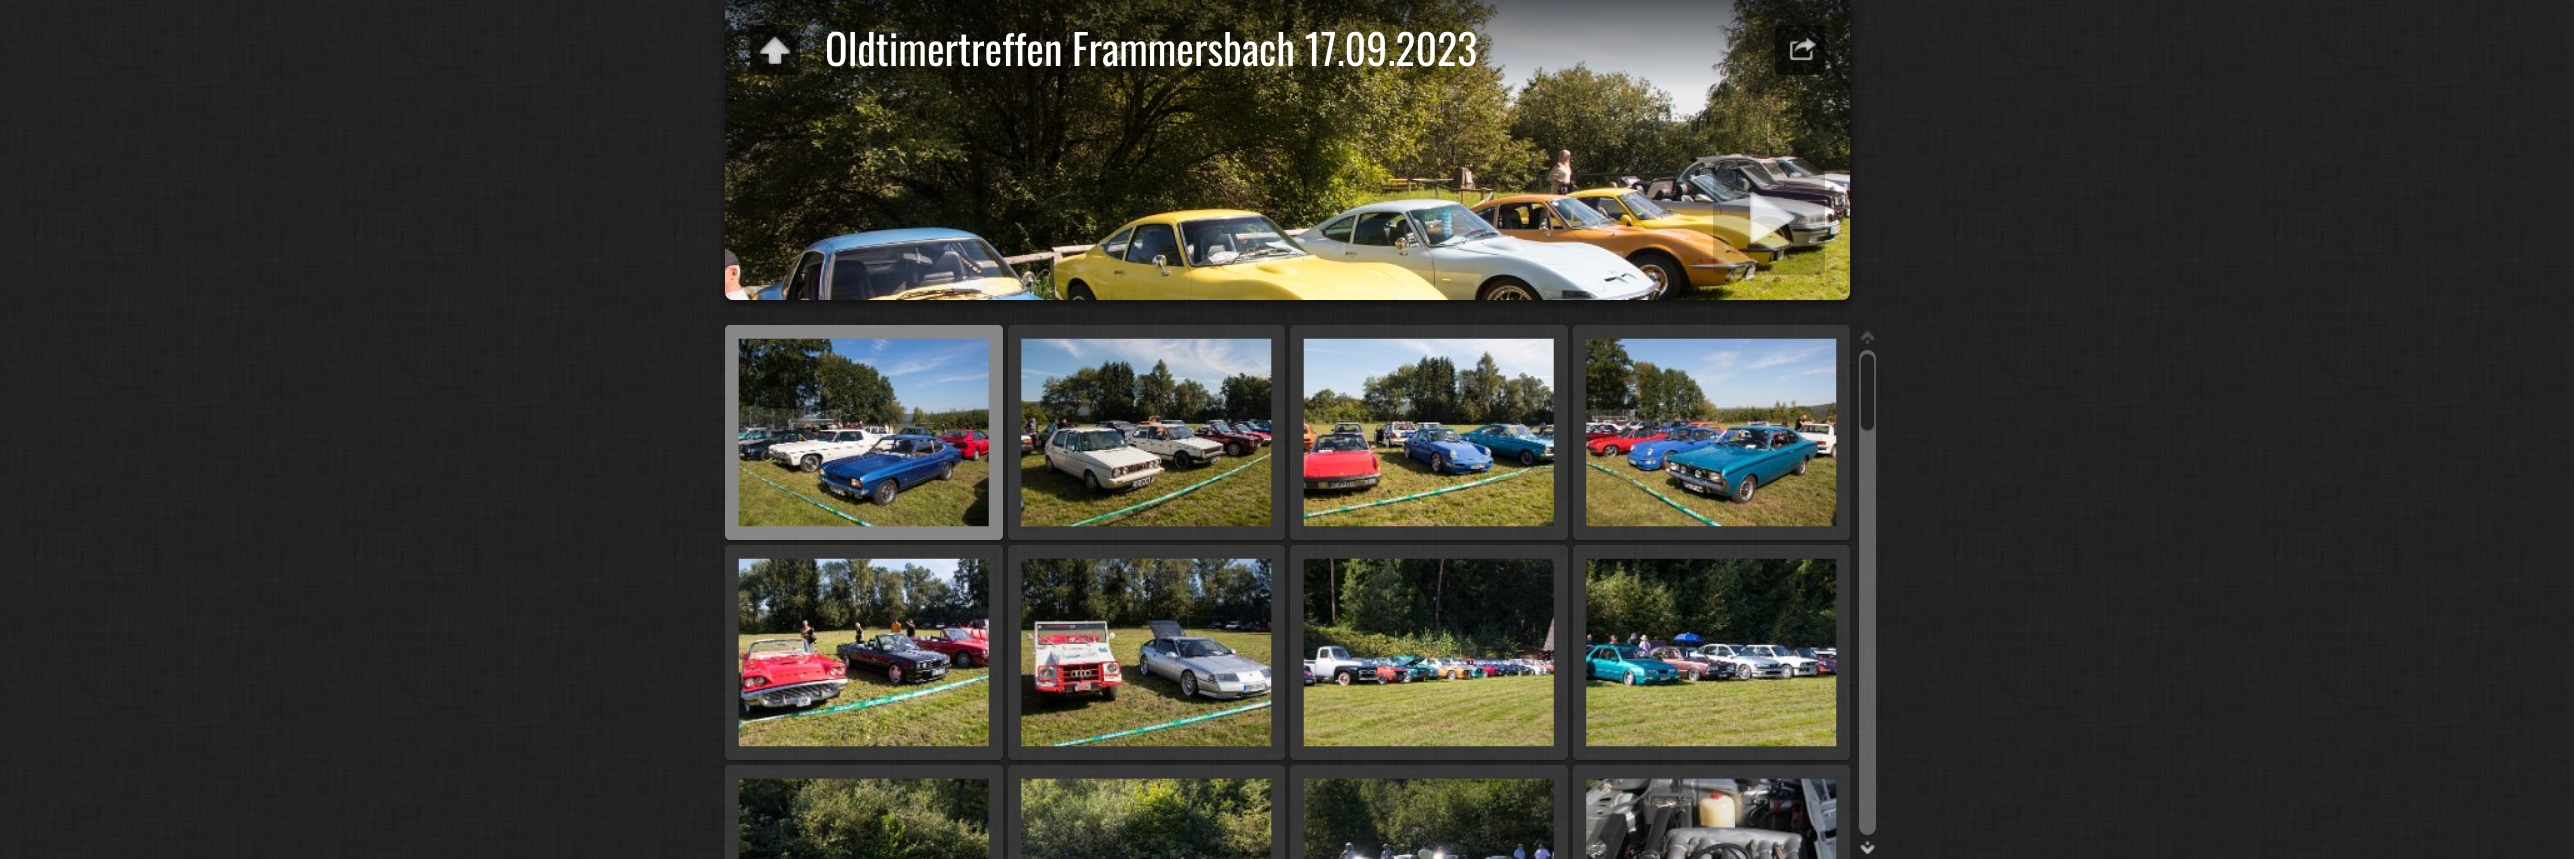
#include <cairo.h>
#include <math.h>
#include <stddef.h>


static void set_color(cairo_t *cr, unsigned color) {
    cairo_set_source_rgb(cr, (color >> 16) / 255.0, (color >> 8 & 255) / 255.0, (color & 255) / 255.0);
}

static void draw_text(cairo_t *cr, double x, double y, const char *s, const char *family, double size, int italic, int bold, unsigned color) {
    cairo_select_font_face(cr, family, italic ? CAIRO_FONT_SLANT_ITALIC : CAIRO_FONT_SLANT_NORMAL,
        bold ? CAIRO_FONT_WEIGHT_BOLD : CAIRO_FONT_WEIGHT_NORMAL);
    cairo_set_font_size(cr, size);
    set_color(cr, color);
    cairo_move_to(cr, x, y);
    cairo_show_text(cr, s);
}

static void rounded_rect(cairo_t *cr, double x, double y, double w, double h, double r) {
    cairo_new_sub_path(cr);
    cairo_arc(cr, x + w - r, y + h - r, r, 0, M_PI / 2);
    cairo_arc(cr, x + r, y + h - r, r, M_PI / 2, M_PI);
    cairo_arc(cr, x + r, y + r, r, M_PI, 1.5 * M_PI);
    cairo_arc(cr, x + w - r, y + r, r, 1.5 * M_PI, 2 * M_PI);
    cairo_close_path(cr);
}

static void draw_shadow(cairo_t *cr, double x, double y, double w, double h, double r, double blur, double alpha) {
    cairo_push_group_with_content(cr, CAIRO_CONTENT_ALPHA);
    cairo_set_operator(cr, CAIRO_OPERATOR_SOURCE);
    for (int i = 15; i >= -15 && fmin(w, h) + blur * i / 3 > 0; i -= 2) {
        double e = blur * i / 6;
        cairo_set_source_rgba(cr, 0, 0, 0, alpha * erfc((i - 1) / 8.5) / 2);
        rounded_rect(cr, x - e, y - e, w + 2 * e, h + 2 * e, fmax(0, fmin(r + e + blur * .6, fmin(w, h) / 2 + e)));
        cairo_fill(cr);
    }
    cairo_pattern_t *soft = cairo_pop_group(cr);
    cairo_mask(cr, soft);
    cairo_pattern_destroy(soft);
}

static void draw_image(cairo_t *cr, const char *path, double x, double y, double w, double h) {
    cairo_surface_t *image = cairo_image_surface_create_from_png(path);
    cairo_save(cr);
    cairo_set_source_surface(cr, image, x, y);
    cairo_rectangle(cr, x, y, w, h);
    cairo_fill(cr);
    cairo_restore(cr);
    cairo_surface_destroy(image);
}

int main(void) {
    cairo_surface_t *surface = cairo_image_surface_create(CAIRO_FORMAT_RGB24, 2574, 859);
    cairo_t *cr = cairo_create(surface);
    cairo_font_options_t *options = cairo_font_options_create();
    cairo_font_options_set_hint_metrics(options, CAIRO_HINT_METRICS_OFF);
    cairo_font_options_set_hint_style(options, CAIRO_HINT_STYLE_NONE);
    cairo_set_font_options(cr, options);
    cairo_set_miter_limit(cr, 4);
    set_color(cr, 0x222222);
    cairo_paint(cr);
    draw_image(cr, "assets/img1.png", 0, 0, 2574, 859);
    set_color(cr, 0x000000);
    draw_shadow(cr, 726, 4, 1125, 300, 8, 5, 0.6);
    draw_image(cr, "assets/img2.png", 725, 0, 1125, 300);
    cairo_set_source_rgba(cr, 0, 0, 0, 0.6);
    rounded_rect(cr, 750, 25, 50, 50, 5);
    cairo_fill(cr);
    draw_image(cr, "assets/img3.png", 759, 36, 32, 28);
    draw_text(cr, 825, 66, "Oldtimertreffen Frammersbach 17.09.2023", "Oswald", 42, 0, 0, 0xFFFFFF);
    cairo_set_source_rgba(cr, 0, 0, 0, 0.6);
    rounded_rect(cr, 1775, 25, 50, 50, 5);
    cairo_fill(cr);
    draw_image(cr, "assets/img4.png", 1789, 37, 28, 24);
    cairo_set_source_rgba(cr, 0, 0, 0, 0.2);
    rounded_rect(cr, 1713, 163, 112, 112, 5);
    cairo_fill(cr);
    draw_image(cr, "assets/img5.png", 1749, 191, 47, 53);
    cairo_save(cr);
    cairo_set_fill_rule(cr, CAIRO_FILL_RULE_EVEN_ODD);
    cairo_new_path(cr);
    cairo_move_to(cr, 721, 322);
    cairo_line_to(cr, 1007, 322);
    cairo_line_to(cr, 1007, 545);
    cairo_line_to(cr, 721, 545);
    cairo_close_path(cr);
    cairo_move_to(cr, 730, 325);
    cairo_line_to(cr, 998, 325);
    cairo_curve_to(cr, 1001, 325, 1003, 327, 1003, 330);
    cairo_line_to(cr, 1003, 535);
    cairo_curve_to(cr, 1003, 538, 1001, 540, 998, 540);
    cairo_line_to(cr, 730, 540);
    cairo_curve_to(cr, 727, 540, 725, 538, 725, 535);
    cairo_line_to(cr, 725, 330);
    cairo_curve_to(cr, 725, 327, 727, 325, 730, 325);
    cairo_close_path(cr);
    cairo_clip(cr);
    set_color(cr, 0x000000);
    draw_shadow(cr, 725, 326, 278, 215, 5, 1, 0.4);
    cairo_restore(cr);
    cairo_set_source_rgba(cr, 1, 1, 1, 0.1);
    rounded_rect(cr, 725, 325, 278, 215, 5);
    cairo_fill(cr);
    cairo_set_source_rgba(cr, 1, 1, 1, 0.4);
    rounded_rect(cr, 725, 325, 278, 215, 5);
    cairo_fill(cr);
    draw_image(cr, "assets/img6.png", 738, 338, 251, 189);
    cairo_save(cr);
    cairo_set_fill_rule(cr, CAIRO_FILL_RULE_EVEN_ODD);
    cairo_new_path(cr);
    cairo_move_to(cr, 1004, 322);
    cairo_line_to(cr, 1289, 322);
    cairo_line_to(cr, 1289, 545);
    cairo_line_to(cr, 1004, 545);
    cairo_close_path(cr);
    cairo_move_to(cr, 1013, 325);
    cairo_line_to(cr, 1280, 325);
    cairo_curve_to(cr, 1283, 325, 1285, 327, 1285, 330);
    cairo_line_to(cr, 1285, 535);
    cairo_curve_to(cr, 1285, 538, 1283, 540, 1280, 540);
    cairo_line_to(cr, 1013, 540);
    cairo_curve_to(cr, 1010, 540, 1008, 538, 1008, 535);
    cairo_line_to(cr, 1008, 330);
    cairo_curve_to(cr, 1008, 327, 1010, 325, 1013, 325);
    cairo_close_path(cr);
    cairo_clip(cr);
    set_color(cr, 0x000000);
    draw_shadow(cr, 1008, 326, 277, 215, 5, 1, 0.4);
    cairo_restore(cr);
    cairo_set_source_rgba(cr, 1, 1, 1, 0.1);
    rounded_rect(cr, 1008, 325, 277, 215, 5);
    cairo_fill(cr);
    draw_image(cr, "assets/img7.png", 1021, 338, 251, 189);
    cairo_save(cr);
    cairo_set_fill_rule(cr, CAIRO_FILL_RULE_EVEN_ODD);
    cairo_new_path(cr);
    cairo_move_to(cr, 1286, 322);
    cairo_line_to(cr, 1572, 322);
    cairo_line_to(cr, 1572, 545);
    cairo_line_to(cr, 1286, 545);
    cairo_close_path(cr);
    cairo_move_to(cr, 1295, 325);
    cairo_line_to(cr, 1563, 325);
    cairo_curve_to(cr, 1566, 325, 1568, 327, 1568, 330);
    cairo_line_to(cr, 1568, 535);
    cairo_curve_to(cr, 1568, 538, 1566, 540, 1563, 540);
    cairo_line_to(cr, 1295, 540);
    cairo_curve_to(cr, 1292, 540, 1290, 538, 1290, 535);
    cairo_line_to(cr, 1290, 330);
    cairo_curve_to(cr, 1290, 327, 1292, 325, 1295, 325);
    cairo_close_path(cr);
    cairo_clip(cr);
    set_color(cr, 0x000000);
    draw_shadow(cr, 1290, 326, 278, 215, 5, 1, 0.4);
    cairo_restore(cr);
    rounded_rect(cr, 1290, 325, 278, 215, 5);
    cairo_fill(cr);
    draw_image(cr, "assets/img8.png", 1303, 338, 251, 189);
    cairo_save(cr);
    cairo_set_fill_rule(cr, CAIRO_FILL_RULE_EVEN_ODD);
    cairo_new_path(cr);
    cairo_move_to(cr, 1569, 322);
    cairo_line_to(cr, 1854, 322);
    cairo_line_to(cr, 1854, 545);
    cairo_line_to(cr, 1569, 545);
    cairo_close_path(cr);
    cairo_move_to(cr, 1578, 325);
    cairo_line_to(cr, 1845, 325);
    cairo_curve_to(cr, 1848, 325, 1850, 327, 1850, 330);
    cairo_line_to(cr, 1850, 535);
    cairo_curve_to(cr, 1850, 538, 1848, 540, 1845, 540);
    cairo_line_to(cr, 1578, 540);
    cairo_curve_to(cr, 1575, 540, 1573, 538, 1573, 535);
    cairo_line_to(cr, 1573, 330);
    cairo_curve_to(cr, 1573, 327, 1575, 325, 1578, 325);
    cairo_close_path(cr);
    cairo_clip(cr);
    set_color(cr, 0x000000);
    draw_shadow(cr, 1573, 326, 277, 215, 5, 1, 0.4);
    cairo_restore(cr);
    rounded_rect(cr, 1573, 325, 277, 215, 5);
    cairo_fill(cr);
    draw_image(cr, "assets/img9.png", 1586, 338, 251, 189);
    cairo_save(cr);
    cairo_set_fill_rule(cr, CAIRO_FILL_RULE_EVEN_ODD);
    cairo_new_path(cr);
    cairo_move_to(cr, 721, 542);
    cairo_line_to(cr, 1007, 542);
    cairo_line_to(cr, 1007, 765);
    cairo_line_to(cr, 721, 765);
    cairo_close_path(cr);
    cairo_move_to(cr, 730, 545);
    cairo_line_to(cr, 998, 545);
    cairo_curve_to(cr, 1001, 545, 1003, 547, 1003, 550);
    cairo_line_to(cr, 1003, 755);
    cairo_curve_to(cr, 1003, 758, 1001, 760, 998, 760);
    cairo_line_to(cr, 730, 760);
    cairo_curve_to(cr, 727, 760, 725, 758, 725, 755);
    cairo_line_to(cr, 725, 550);
    cairo_curve_to(cr, 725, 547, 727, 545, 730, 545);
    cairo_close_path(cr);
    cairo_clip(cr);
    set_color(cr, 0x000000);
    draw_shadow(cr, 725, 546, 278, 215, 5, 1, 0.4);
    cairo_restore(cr);
    rounded_rect(cr, 725, 545, 278, 215, 5);
    cairo_fill(cr);
    draw_image(cr, "assets/img10.png", 738, 558, 251, 189);
    cairo_save(cr);
    cairo_set_fill_rule(cr, CAIRO_FILL_RULE_EVEN_ODD);
    cairo_new_path(cr);
    cairo_move_to(cr, 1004, 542);
    cairo_line_to(cr, 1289, 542);
    cairo_line_to(cr, 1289, 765);
    cairo_line_to(cr, 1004, 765);
    cairo_close_path(cr);
    cairo_move_to(cr, 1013, 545);
    cairo_line_to(cr, 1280, 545);
    cairo_curve_to(cr, 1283, 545, 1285, 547, 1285, 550);
    cairo_line_to(cr, 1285, 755);
    cairo_curve_to(cr, 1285, 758, 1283, 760, 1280, 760);
    cairo_line_to(cr, 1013, 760);
    cairo_curve_to(cr, 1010, 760, 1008, 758, 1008, 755);
    cairo_line_to(cr, 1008, 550);
    cairo_curve_to(cr, 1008, 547, 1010, 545, 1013, 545);
    cairo_close_path(cr);
    cairo_clip(cr);
    set_color(cr, 0x000000);
    draw_shadow(cr, 1008, 546, 277, 215, 5, 1, 0.4);
    cairo_restore(cr);
    rounded_rect(cr, 1008, 545, 277, 215, 5);
    cairo_fill(cr);
    draw_image(cr, "assets/img11.png", 1021, 558, 251, 189);
    cairo_save(cr);
    cairo_set_fill_rule(cr, CAIRO_FILL_RULE_EVEN_ODD);
    cairo_new_path(cr);
    cairo_move_to(cr, 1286, 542);
    cairo_line_to(cr, 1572, 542);
    cairo_line_to(cr, 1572, 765);
    cairo_line_to(cr, 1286, 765);
    cairo_close_path(cr);
    cairo_move_to(cr, 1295, 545);
    cairo_line_to(cr, 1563, 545);
    cairo_curve_to(cr, 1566, 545, 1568, 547, 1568, 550);
    cairo_line_to(cr, 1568, 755);
    cairo_curve_to(cr, 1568, 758, 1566, 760, 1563, 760);
    cairo_line_to(cr, 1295, 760);
    cairo_curve_to(cr, 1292, 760, 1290, 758, 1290, 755);
    cairo_line_to(cr, 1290, 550);
    cairo_curve_to(cr, 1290, 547, 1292, 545, 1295, 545);
    cairo_close_path(cr);
    cairo_clip(cr);
    set_color(cr, 0x000000);
    draw_shadow(cr, 1290, 546, 278, 215, 5, 1, 0.4);
    cairo_restore(cr);
    rounded_rect(cr, 1290, 545, 278, 215, 5);
    cairo_fill(cr);
    draw_image(cr, "assets/img12.png", 1303, 558, 251, 189);
    cairo_save(cr);
    cairo_set_fill_rule(cr, CAIRO_FILL_RULE_EVEN_ODD);
    cairo_new_path(cr);
    cairo_move_to(cr, 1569, 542);
    cairo_line_to(cr, 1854, 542);
    cairo_line_to(cr, 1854, 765);
    cairo_line_to(cr, 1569, 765);
    cairo_close_path(cr);
    cairo_move_to(cr, 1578, 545);
    cairo_line_to(cr, 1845, 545);
    cairo_curve_to(cr, 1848, 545, 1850, 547, 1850, 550);
    cairo_line_to(cr, 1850, 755);
    cairo_curve_to(cr, 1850, 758, 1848, 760, 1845, 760);
    cairo_line_to(cr, 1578, 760);
    cairo_curve_to(cr, 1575, 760, 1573, 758, 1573, 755);
    cairo_line_to(cr, 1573, 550);
    cairo_curve_to(cr, 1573, 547, 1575, 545, 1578, 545);
    cairo_close_path(cr);
    cairo_clip(cr);
    set_color(cr, 0x000000);
    draw_shadow(cr, 1573, 546, 277, 215, 5, 1, 0.4);
    cairo_restore(cr);
    rounded_rect(cr, 1573, 545, 277, 215, 5);
    cairo_fill(cr);
    draw_image(cr, "assets/img13.png", 1586, 558, 251, 189);
    cairo_new_path(cr);
    cairo_move_to(cr, 730, 765);
    cairo_line_to(cr, 998, 765);
    cairo_curve_to(cr, 1001, 765, 1003, 767, 1003, 770);
    cairo_line_to(cr, 1003, 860);
    cairo_line_to(cr, 725, 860);
    cairo_line_to(cr, 725, 770);
    cairo_curve_to(cr, 725, 767, 727, 765, 730, 765);
    cairo_close_path(cr);
    cairo_fill(cr);
    draw_image(cr, "assets/img14.png", 738, 778, 251, 81);
    cairo_new_path(cr);
    cairo_move_to(cr, 1013, 765);
    cairo_line_to(cr, 1280, 765);
    cairo_curve_to(cr, 1283, 765, 1285, 767, 1285, 770);
    cairo_line_to(cr, 1285, 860);
    cairo_line_to(cr, 1008, 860);
    cairo_line_to(cr, 1008, 770);
    cairo_curve_to(cr, 1008, 767, 1010, 765, 1013, 765);
    cairo_close_path(cr);
    cairo_fill(cr);
    draw_image(cr, "assets/img15.png", 1021, 778, 251, 81);
    cairo_new_path(cr);
    cairo_move_to(cr, 1295, 765);
    cairo_line_to(cr, 1563, 765);
    cairo_curve_to(cr, 1566, 765, 1568, 767, 1568, 770);
    cairo_line_to(cr, 1568, 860);
    cairo_line_to(cr, 1290, 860);
    cairo_line_to(cr, 1290, 770);
    cairo_curve_to(cr, 1290, 767, 1292, 765, 1295, 765);
    cairo_close_path(cr);
    cairo_fill(cr);
    draw_image(cr, "assets/img16.png", 1303, 778, 251, 81);
    cairo_new_path(cr);
    cairo_move_to(cr, 1578, 765);
    cairo_line_to(cr, 1845, 765);
    cairo_curve_to(cr, 1848, 765, 1850, 767, 1850, 770);
    cairo_line_to(cr, 1850, 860);
    cairo_line_to(cr, 1573, 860);
    cairo_line_to(cr, 1573, 770);
    cairo_curve_to(cr, 1573, 767, 1575, 765, 1578, 765);
    cairo_close_path(cr);
    cairo_fill(cr);
    draw_image(cr, "assets/img17.png", 1586, 778, 251, 81);
    draw_image(cr, "assets/img18.png", 1860, 331, 15, 13);
    cairo_set_source_rgba(cr, 1, 1, 1, 0.3);
    rounded_rect(cr, 1859, 350, 17, 485, 8.5);
    cairo_fill(cr);
    set_color(cr, 0x000000);
    draw_shadow(cr, 1861, 355, 13, 76, 6.5, 1, 0.4);
    set_color(cr, 0x222222);
    rounded_rect(cr, 1861, 354, 13, 76, 6.5);
    cairo_fill(cr);
    draw_image(cr, "assets/img19.png", 1860, 841, 16, 13);
    cairo_surface_write_to_png(surface, "output.png");
    cairo_font_options_destroy(options);
    cairo_destroy(cr);
    cairo_surface_destroy(surface);
    return 0;
}
